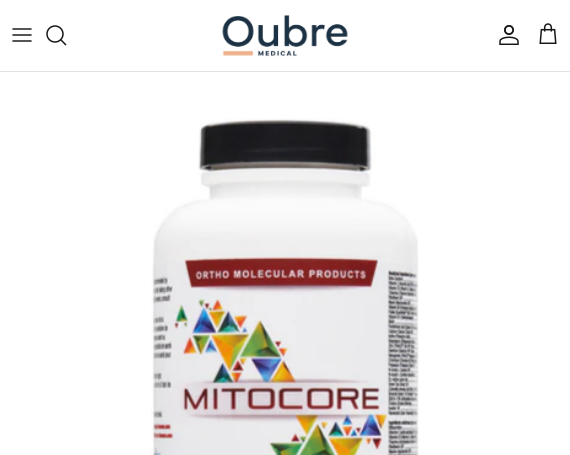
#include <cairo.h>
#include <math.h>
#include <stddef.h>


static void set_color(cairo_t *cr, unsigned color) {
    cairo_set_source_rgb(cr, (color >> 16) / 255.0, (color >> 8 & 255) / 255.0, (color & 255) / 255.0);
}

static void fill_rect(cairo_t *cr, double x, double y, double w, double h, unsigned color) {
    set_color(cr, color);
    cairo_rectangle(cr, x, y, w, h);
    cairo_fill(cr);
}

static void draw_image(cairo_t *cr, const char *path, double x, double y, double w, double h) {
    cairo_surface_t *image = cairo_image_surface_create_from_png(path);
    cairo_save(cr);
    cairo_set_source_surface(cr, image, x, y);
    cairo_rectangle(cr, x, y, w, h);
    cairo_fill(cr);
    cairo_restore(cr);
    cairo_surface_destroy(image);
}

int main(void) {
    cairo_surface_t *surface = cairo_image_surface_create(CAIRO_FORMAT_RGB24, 570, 455);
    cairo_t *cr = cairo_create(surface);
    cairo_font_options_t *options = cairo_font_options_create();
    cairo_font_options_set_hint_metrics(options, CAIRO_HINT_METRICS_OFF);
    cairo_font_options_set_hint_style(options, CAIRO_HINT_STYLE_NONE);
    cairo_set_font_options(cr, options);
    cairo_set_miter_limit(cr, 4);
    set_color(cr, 0xFFFFFF);
    cairo_paint(cr);
    fill_rect(cr, 0, 71, 570, 1, 0xDFE3E8);
    draw_image(cr, "assets/img1.png", 12, 28, 20, 14);
    cairo_arc(cr, 55, 34, 8, 0, 2 * M_PI);
    set_color(cr, 0x171717);
    cairo_set_line_width(cr, 1.5);
    cairo_stroke(cr);
    cairo_new_path(cr);
    cairo_move_to(cr, 61, 40);
    cairo_line_to(cr, 65.5, 44.5);
    cairo_set_line_cap(cr, CAIRO_LINE_CAP_SQUARE);
    cairo_stroke(cr);
    draw_image(cr, "assets/img2.png", 222, 15, 126, 42);
    draw_image(cr, "assets/img3.png", 499, 25, 20, 20);
    draw_image(cr, "assets/img4.png", 539, 23, 18, 21);
    draw_image(cr, "assets/img5.png", 151, 118, 268, 337);
    cairo_surface_write_to_png(surface, "output.png");
    cairo_font_options_destroy(options);
    cairo_destroy(cr);
    cairo_surface_destroy(surface);
    return 0;
}
